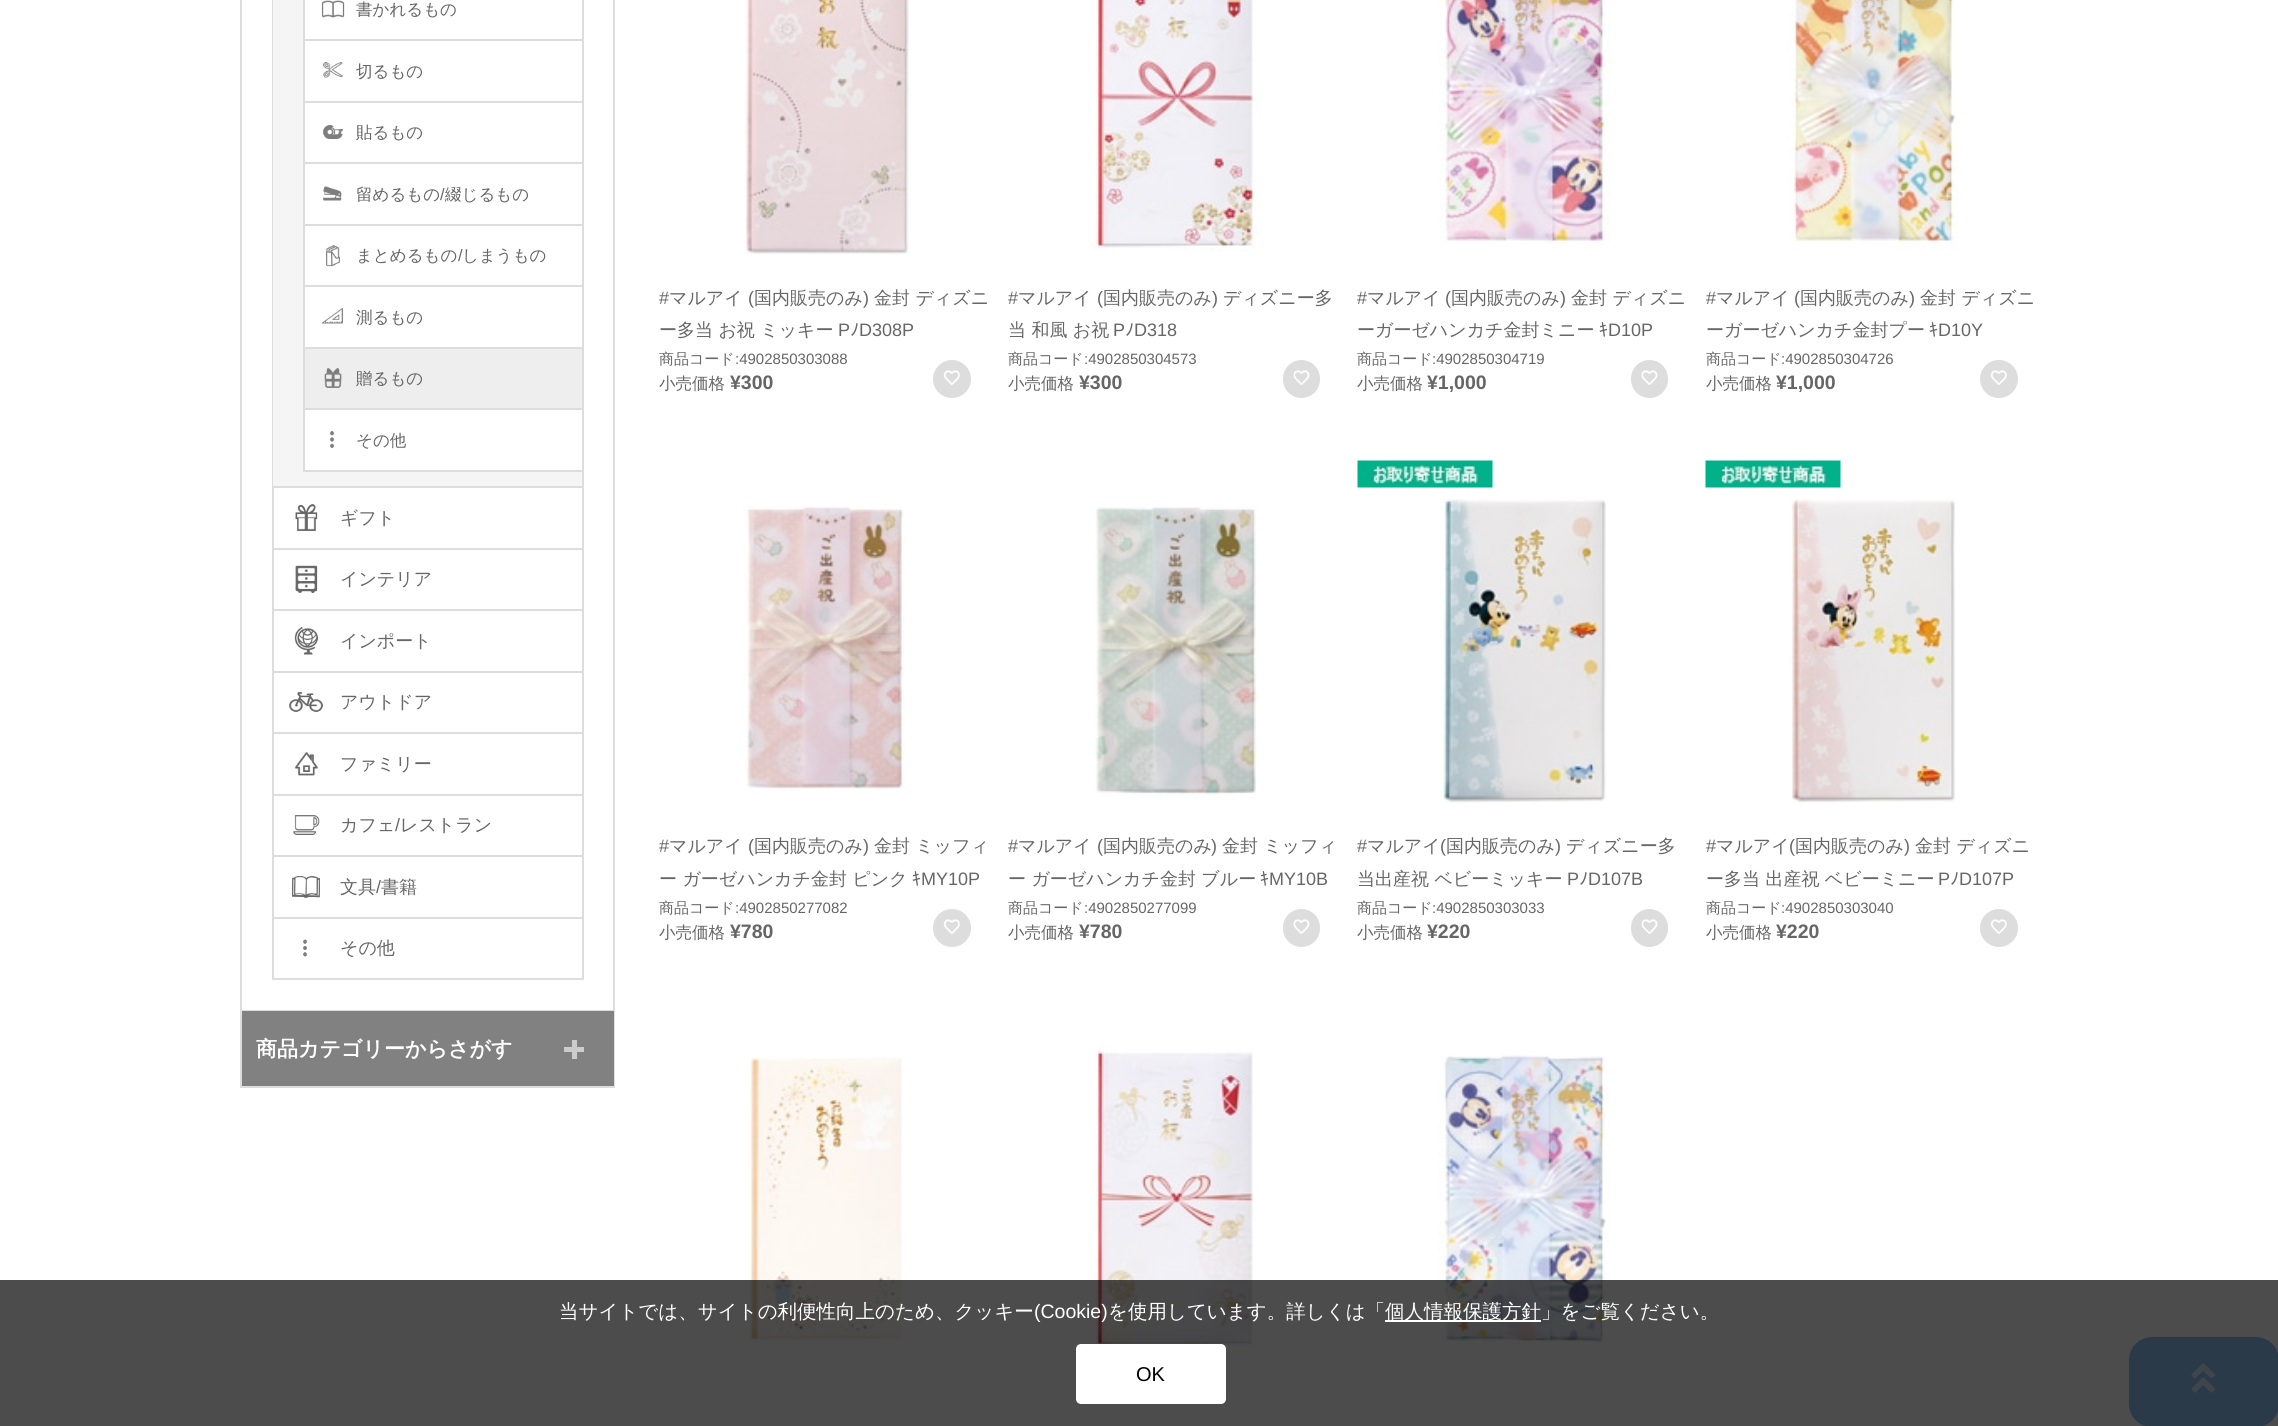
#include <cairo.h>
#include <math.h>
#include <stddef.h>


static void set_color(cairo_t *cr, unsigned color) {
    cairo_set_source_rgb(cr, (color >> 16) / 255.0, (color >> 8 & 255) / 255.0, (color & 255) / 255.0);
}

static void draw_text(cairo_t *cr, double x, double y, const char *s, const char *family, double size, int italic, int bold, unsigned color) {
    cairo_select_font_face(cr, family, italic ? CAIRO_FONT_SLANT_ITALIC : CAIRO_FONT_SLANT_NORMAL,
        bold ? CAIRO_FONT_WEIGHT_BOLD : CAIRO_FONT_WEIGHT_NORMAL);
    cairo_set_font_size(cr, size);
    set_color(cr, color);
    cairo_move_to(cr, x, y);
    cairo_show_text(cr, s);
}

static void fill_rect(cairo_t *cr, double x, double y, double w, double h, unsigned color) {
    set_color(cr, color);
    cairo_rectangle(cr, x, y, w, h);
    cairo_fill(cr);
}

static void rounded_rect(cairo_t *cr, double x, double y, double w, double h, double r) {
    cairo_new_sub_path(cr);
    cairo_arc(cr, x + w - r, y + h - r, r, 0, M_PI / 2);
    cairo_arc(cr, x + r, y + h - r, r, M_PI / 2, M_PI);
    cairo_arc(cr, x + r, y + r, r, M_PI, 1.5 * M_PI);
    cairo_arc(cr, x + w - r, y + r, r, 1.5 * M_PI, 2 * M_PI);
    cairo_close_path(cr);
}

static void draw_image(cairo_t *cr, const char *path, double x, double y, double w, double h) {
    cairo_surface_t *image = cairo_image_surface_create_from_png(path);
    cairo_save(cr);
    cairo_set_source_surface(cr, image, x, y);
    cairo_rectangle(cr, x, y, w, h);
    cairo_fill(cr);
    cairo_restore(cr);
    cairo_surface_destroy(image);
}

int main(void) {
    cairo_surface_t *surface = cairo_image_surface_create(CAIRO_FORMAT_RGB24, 2278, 1426);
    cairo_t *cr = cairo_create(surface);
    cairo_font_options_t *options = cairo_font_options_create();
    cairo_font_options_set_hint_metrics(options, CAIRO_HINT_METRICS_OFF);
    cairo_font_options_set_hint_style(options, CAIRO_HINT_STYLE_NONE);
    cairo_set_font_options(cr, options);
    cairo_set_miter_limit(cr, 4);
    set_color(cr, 0xFFFFFF);
    cairo_paint(cr);
    cairo_rectangle(cr, 241, -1, 373, 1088);
    set_color(cr, 0xDDDDDD);
    cairo_stroke(cr);
    cairo_rectangle(cr, 273, -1, 310, 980);
    cairo_stroke(cr);
    fill_rect(cr, 273, 0, 309, 486, 0xF5F5F5);
    fill_rect(cr, 303, 470, 279, 2, 0xDDDDDD);
    fill_rect(cr, 303, 0, 2, 471, 0xDDDDDD);
    fill_rect(cr, 305, 0, 277, 39, 0xFFFFFF);
    draw_image(cr, "assets/img1.png", 321, 0, 24, 18);
    draw_text(cr, 356, 15, "書かれるもの", "WenQuanYi Zen Hei Medium", 16.5, 0, 0, 0x666666);
    fill_rect(cr, 305, 41, 277, 60, 0xFFFFFF);
    fill_rect(cr, 305, 39, 277, 2, 0xDDDDDD);
    draw_image(cr, "assets/img2.png", 323, 62, 20, 16);
    draw_text(cr, 356, 77, "切るもの", "WenQuanYi Zen Hei Medium", 16.5, 0, 0, 0x666666);
    fill_rect(cr, 305, 103, 277, 59, 0xFFFFFF);
    fill_rect(cr, 305, 101, 277, 2, 0xDDDDDD);
    draw_image(cr, "assets/img3.png", 323, 125, 20, 14);
    draw_text(cr, 356, 138, "貼るもの", "WenQuanYi Zen Hei Medium", 16.5, 0, 0, 0x666666);
    fill_rect(cr, 305, 164, 277, 60, 0xFFFFFF);
    fill_rect(cr, 305, 162, 277, 2, 0xDDDDDD);
    draw_image(cr, "assets/img4.png", 323, 186, 19, 15);
    draw_text(cr, 356, 200, "留めるもの", "WenQuanYi Zen Hei Medium", 16.5, 0, 0, 0x666666);
    draw_text(cr, 440, 200, "/", "Liberation Sans", 16.5, 0, 0, 0x666666);
    draw_text(cr, 445, 200, "綴じるもの", "WenQuanYi Zen Hei Medium", 16.5, 0, 0, 0x666666);
    fill_rect(cr, 305, 226, 277, 59, 0xFFFFFF);
    fill_rect(cr, 305, 224, 277, 2, 0xDDDDDD);
    draw_image(cr, "assets/img5.png", 326, 245, 14, 22);
    draw_text(cr, 356, 261, "まとめるもの", "WenQuanYi Zen Hei Medium", 16.5, 0, 0, 0x666666);
    draw_text(cr, 458, 261, "/", "Liberation Sans", 16.5, 0, 0, 0x666666);
    draw_text(cr, 462, 261, "しまうもの", "WenQuanYi Zen Hei Medium", 16.5, 0, 0, 0x666666);
    fill_rect(cr, 305, 287, 277, 60, 0xFFFFFF);
    fill_rect(cr, 305, 285, 277, 2, 0xDDDDDD);
    draw_image(cr, "assets/img6.png", 321, 308, 22, 16);
    draw_text(cr, 356, 323, "測るもの", "WenQuanYi Zen Hei Medium", 16.5, 0, 0, 0x666666);
    fill_rect(cr, 305, 349, 277, 59, 0xEEEEEE);
    fill_rect(cr, 305, 347, 277, 2, 0xDDDDDD);
    draw_image(cr, "assets/img7.png", 324, 368, 18, 20);
    draw_text(cr, 356, 384, "贈るもの", "WenQuanYi Zen Hei Medium", 16.5, 0, 0, 0x666666);
    fill_rect(cr, 305, 410, 277, 60, 0xFFFFFF);
    fill_rect(cr, 305, 408, 277, 2, 0xDDDDDD);
    draw_image(cr, "assets/img8.png", 330, 431, 5, 17);
    draw_text(cr, 356, 446, "その他", "WenQuanYi Zen Hei Medium", 16.5, 0, 0, 0x666666);
    fill_rect(cr, 273, 486, 309, 2, 0xDDDDDD);
    draw_image(cr, "assets/img9.png", 295, 504, 23, 27);
    draw_text(cr, 340, 524, "ギフト", "WenQuanYi Zen Hei Medium", 18, 0, 0, 0x666666);
    fill_rect(cr, 273, 548, 309, 2, 0xDDDDDD);
    draw_image(cr, "assets/img10.png", 295, 565, 23, 28);
    draw_text(cr, 340, 585, "インテリア", "WenQuanYi Zen Hei Medium", 18, 0, 0, 0x666666);
    fill_rect(cr, 273, 609, 309, 2, 0xDDDDDD);
    draw_image(cr, "assets/img11.png", 294, 627, 24, 28);
    draw_text(cr, 340, 647, "インポート", "WenQuanYi Zen Hei Medium", 18, 0, 0, 0x666666);
    fill_rect(cr, 273, 671, 309, 2, 0xDDDDDD);
    draw_image(cr, "assets/img12.png", 289, 692, 34, 20);
    draw_text(cr, 340, 708, "アウトドア", "WenQuanYi Zen Hei Medium", 18, 0, 0, 0x666666);
    fill_rect(cr, 273, 732, 309, 2, 0xDDDDDD);
    draw_image(cr, "assets/img13.png", 294, 752, 24, 24);
    draw_text(cr, 340, 770, "ファミリー", "WenQuanYi Zen Hei Medium", 18, 0, 0, 0x666666);
    fill_rect(cr, 273, 794, 309, 2, 0xDDDDDD);
    draw_image(cr, "assets/img14.png", 293, 815, 27, 20);
    draw_text(cr, 340, 831, "カフェ", "WenQuanYi Zen Hei Medium", 18, 0, 0, 0x666666);
    draw_text(cr, 395, 831, "/", "Liberation Sans", 18, 0, 0, 0x666666);
    draw_text(cr, 400, 831, "レストラン", "WenQuanYi Zen Hei Medium", 18, 0, 0, 0x666666);
    fill_rect(cr, 273, 855, 309, 2, 0xDDDDDD);
    draw_image(cr, "assets/img15.png", 292, 876, 28, 22);
    draw_text(cr, 340, 893, "文具", "WenQuanYi Zen Hei Medium", 18, 0, 0, 0x666666);
    draw_text(cr, 376, 893, "/", "Liberation Sans", 18, 0, 0, 0x666666);
    draw_text(cr, 381, 893, "書籍", "WenQuanYi Zen Hei Medium", 18, 0, 0, 0x666666);
    fill_rect(cr, 273, 917, 309, 2, 0xDDDDDD);
    draw_image(cr, "assets/img16.png", 303, 939, 5, 18);
    draw_text(cr, 340, 954, "その他", "WenQuanYi Zen Hei Medium", 18, 0, 0, 0x666666);
    fill_rect(cr, 242, 1010, 372, 1, 0xDDDDDD);
    fill_rect(cr, 242, 1011, 372, 75, 0x818181);
    draw_text(cr, 256, 1056, "商品カテゴリーからさがす", "WenQuanYi Zen Hei", 21, 0, 1, 0xFFFFFF);
    fill_rect(cr, 564, 1047, 20, 5, 0xCCCCCC);
    fill_rect(cr, 572, 1040, 5, 19, 0xCCCCCC);
    draw_image(cr, "assets/img17.png", 744, 0, 167, 254);
    draw_text(cr, 659, 304, "#", "Liberation Sans", 18, 0, 0, 0x666666);
    draw_text(cr, 669, 304, "マルアイ", "WenQuanYi Zen Hei Medium", 18, 0, 0, 0x666666);
    draw_text(cr, 748, 304, "(", "Liberation Sans", 18, 0, 0, 0x666666);
    draw_text(cr, 754, 304, "国内販売のみ", "WenQuanYi Zen Hei Medium", 18, 0, 0, 0x666666);
    draw_text(cr, 863, 304, ")", "Liberation Sans", 18, 0, 0, 0x666666);
    draw_text(cr, 874, 304, "金封 ディズニ", "WenQuanYi Zen Hei Medium", 18, 0, 0, 0x666666);
    draw_text(cr, 659, 336, "ー多当 お祝 ミッキー", "WenQuanYi Zen Hei Medium", 18, 0, 0, 0x666666);
    draw_text(cr, 838, 336, "P", "Liberation Sans", 18, 0, 0, 0x666666);
    draw_text(cr, 850, 336, "ﾉ", "IPAPGothic", 18, 0, 0, 0x666666);
    draw_text(cr, 859, 336, "D308P", "Liberation Sans", 18, 0, 0, 0x666666);
    draw_text(cr, 659, 364, "商品コード", "WenQuanYi Zen Hei Medium", 15, 0, 0, 0x666666);
    draw_text(cr, 735, 364, ":4902850303088", "Liberation Sans", 15, 0, 0, 0x666666);
    draw_text(cr, 659, 389, "小売価格", "WenQuanYi Zen Hei Medium", 16.5, 0, 0, 0x666666);
    draw_text(cr, 730, 389, "¥300", "Liberation Sans", 19.5, 0, 1, 0x666666);
    set_color(cr, 0xDDDDDD);
    cairo_new_path(cr);
    cairo_arc(cr, 952, 379, 19, 0, 2 * M_PI);
    cairo_fill(cr);
    draw_image(cr, "assets/img18.png", 943, 370, 17, 15);
    draw_image(cr, "assets/img19.png", 1092, 0, 170, 252);
    draw_text(cr, 1008, 304, "#", "Liberation Sans", 18, 0, 0, 0x666666);
    draw_text(cr, 1018, 304, "マルアイ", "WenQuanYi Zen Hei Medium", 18, 0, 0, 0x666666);
    draw_text(cr, 1097, 304, "(", "Liberation Sans", 18, 0, 0, 0x666666);
    draw_text(cr, 1103, 304, "国内販売のみ", "WenQuanYi Zen Hei Medium", 18, 0, 0, 0x666666);
    draw_text(cr, 1212, 304, ")", "Liberation Sans", 18, 0, 0, 0x666666);
    draw_text(cr, 1223, 304, "ディズニー多", "WenQuanYi Zen Hei Medium", 18, 0, 0, 0x666666);
    draw_text(cr, 1008, 336, "当 和風 お祝", "WenQuanYi Zen Hei Medium", 18, 0, 0, 0x666666);
    draw_text(cr, 1113, 336, "P", "Liberation Sans", 18, 0, 0, 0x666666);
    draw_text(cr, 1125, 336, "ﾉ", "IPAPGothic", 18, 0, 0, 0x666666);
    draw_text(cr, 1134, 336, "D318", "Liberation Sans", 18, 0, 0, 0x666666);
    draw_text(cr, 1008, 364, "商品コード", "WenQuanYi Zen Hei Medium", 15, 0, 0, 0x666666);
    draw_text(cr, 1084, 364, ":4902850304573", "Liberation Sans", 15, 0, 0, 0x666666);
    draw_text(cr, 1008, 389, "小売価格", "WenQuanYi Zen Hei Medium", 16.5, 0, 0, 0x666666);
    draw_text(cr, 1079, 389, "¥300", "Liberation Sans", 19.5, 0, 1, 0x666666);
    set_color(cr, 0xDDDDDD);
    rounded_rect(cr, 1283, 360, 37, 38, 18.5);
    cairo_fill(cr);
    draw_image(cr, "assets/img20.png", 1293, 370, 17, 15);
    draw_image(cr, "assets/img21.png", 1439, 0, 172, 243);
    draw_text(cr, 1357, 304, "#", "Liberation Sans", 18, 0, 0, 0x666666);
    draw_text(cr, 1367, 304, "マルアイ", "WenQuanYi Zen Hei Medium", 18, 0, 0, 0x666666);
    draw_text(cr, 1445, 304, "(", "Liberation Sans", 18, 0, 0, 0x666666);
    draw_text(cr, 1451, 304, "国内販売のみ", "WenQuanYi Zen Hei Medium", 18, 0, 0, 0x666666);
    draw_text(cr, 1560, 304, ")", "Liberation Sans", 18, 0, 0, 0x666666);
    draw_text(cr, 1571, 304, "金封 ディズニ", "WenQuanYi Zen Hei Medium", 18, 0, 0, 0x666666);
    draw_text(cr, 1357, 336, "ーガーゼハンカチ金封ミニー", "WenQuanYi Zen Hei Medium", 18, 0, 0, 0x666666);
    draw_text(cr, 1599, 336, "ｷ", "IPAPGothic", 18, 0, 0, 0x666666);
    draw_text(cr, 1608, 336, "D10P", "Liberation Sans", 18, 0, 0, 0x666666);
    draw_text(cr, 1357, 364, "商品コード", "WenQuanYi Zen Hei Medium", 15, 0, 0, 0x666666);
    draw_text(cr, 1432, 364, ":4902850304719", "Liberation Sans", 15, 0, 0, 0x666666);
    draw_text(cr, 1357, 389, "小売価格", "WenQuanYi Zen Hei Medium", 16.5, 0, 0, 0x666666);
    draw_text(cr, 1427, 389, "¥1,000", "Liberation Sans", 19.5, 0, 1, 0x666666);
    set_color(cr, 0xDDDDDD);
    rounded_rect(cr, 1631, 360, 37, 38, 18.5);
    cairo_fill(cr);
    draw_image(cr, "assets/img22.png", 1641, 370, 17, 15);
    draw_image(cr, "assets/img23.png", 1788, 0, 171, 250);
    draw_text(cr, 1706, 304, "#", "Liberation Sans", 18, 0, 0, 0x666666);
    draw_text(cr, 1716, 304, "マルアイ", "WenQuanYi Zen Hei Medium", 18, 0, 0, 0x666666);
    draw_text(cr, 1794, 304, "(", "Liberation Sans", 18, 0, 0, 0x666666);
    draw_text(cr, 1800, 304, "国内販売のみ", "WenQuanYi Zen Hei Medium", 18, 0, 0, 0x666666);
    draw_text(cr, 1909, 304, ")", "Liberation Sans", 18, 0, 0, 0x666666);
    draw_text(cr, 1920, 304, "金封 ディズニ", "WenQuanYi Zen Hei Medium", 18, 0, 0, 0x666666);
    draw_text(cr, 1706, 336, "ーガーゼハンカチ金封プー", "WenQuanYi Zen Hei Medium", 18, 0, 0, 0x666666);
    draw_text(cr, 1929, 336, "ｷ", "IPAPGothic", 18, 0, 0, 0x666666);
    draw_text(cr, 1938, 336, "D10Y", "Liberation Sans", 18, 0, 0, 0x666666);
    draw_text(cr, 1706, 364, "商品コード", "WenQuanYi Zen Hei Medium", 15, 0, 0, 0x666666);
    draw_text(cr, 1781, 364, ":4902850304726", "Liberation Sans", 15, 0, 0, 0x666666);
    draw_text(cr, 1706, 389, "小売価格", "WenQuanYi Zen Hei Medium", 16.5, 0, 0, 0x666666);
    draw_text(cr, 1776, 389, "¥1,000", "Liberation Sans", 19.5, 0, 1, 0x666666);
    set_color(cr, 0xDDDDDD);
    cairo_new_path(cr);
    cairo_arc(cr, 1999, 379, 19, 0, 2 * M_PI);
    cairo_fill(cr);
    draw_image(cr, "assets/img18.png", 1990, 370, 17, 15);
    draw_image(cr, "assets/img24.png", 746, 506, 159, 284);
    draw_text(cr, 659, 852, "#", "Liberation Sans", 18, 0, 0, 0x666666);
    draw_text(cr, 669, 852, "マルアイ", "WenQuanYi Zen Hei Medium", 18, 0, 0, 0x666666);
    draw_text(cr, 748, 852, "(", "Liberation Sans", 18, 0, 0, 0x666666);
    draw_text(cr, 754, 852, "国内販売のみ", "WenQuanYi Zen Hei Medium", 18, 0, 0, 0x666666);
    draw_text(cr, 863, 852, ")", "Liberation Sans", 18, 0, 0, 0x666666);
    draw_text(cr, 874, 852, "金封 ミッフィ", "WenQuanYi Zen Hei Medium", 18, 0, 0, 0x666666);
    draw_text(cr, 659, 885, "ー ガーゼハンカチ金封 ピンク", "WenQuanYi Zen Hei Medium", 18, 0, 0, 0x666666);
    draw_text(cr, 912, 885, "ｷ", "IPAPGothic", 18, 0, 0, 0x666666);
    draw_text(cr, 921, 885, "MY10P", "Liberation Sans", 18, 0, 0, 0x666666);
    draw_text(cr, 659, 913, "商品コード", "WenQuanYi Zen Hei Medium", 15, 0, 0, 0x666666);
    draw_text(cr, 735, 913, ":4902850277082", "Liberation Sans", 15, 0, 0, 0x666666);
    draw_text(cr, 659, 938, "小売価格", "WenQuanYi Zen Hei Medium", 16.5, 0, 0, 0x666666);
    draw_text(cr, 730, 938, "¥780", "Liberation Sans", 19.5, 0, 1, 0x666666);
    set_color(cr, 0xDDDDDD);
    cairo_new_path(cr);
    cairo_arc(cr, 952, 928, 19, 0, 2 * M_PI);
    cairo_fill(cr);
    draw_image(cr, "assets/img18.png", 943, 919, 17, 15);
    draw_image(cr, "assets/img25.png", 1093, 507, 166, 292);
    draw_text(cr, 1008, 852, "#", "Liberation Sans", 18, 0, 0, 0x666666);
    draw_text(cr, 1018, 852, "マルアイ", "WenQuanYi Zen Hei Medium", 18, 0, 0, 0x666666);
    draw_text(cr, 1097, 852, "(", "Liberation Sans", 18, 0, 0, 0x666666);
    draw_text(cr, 1103, 852, "国内販売のみ", "WenQuanYi Zen Hei Medium", 18, 0, 0, 0x666666);
    draw_text(cr, 1211, 852, ")", "Liberation Sans", 18, 0, 0, 0x666666);
    draw_text(cr, 1222, 852, "金封 ミッフィ", "WenQuanYi Zen Hei Medium", 18, 0, 0, 0x666666);
    draw_text(cr, 1008, 885, "ー ガーゼハンカチ金封 ブルー", "WenQuanYi Zen Hei Medium", 18, 0, 0, 0x666666);
    draw_text(cr, 1260, 885, "ｷ", "IPAPGothic", 18, 0, 0, 0x666666);
    draw_text(cr, 1269, 885, "MY10B", "Liberation Sans", 18, 0, 0, 0x666666);
    draw_text(cr, 1008, 913, "商品コード", "WenQuanYi Zen Hei Medium", 15, 0, 0, 0x666666);
    draw_text(cr, 1084, 913, ":4902850277099", "Liberation Sans", 15, 0, 0, 0x666666);
    draw_text(cr, 1008, 938, "小売価格", "WenQuanYi Zen Hei Medium", 16.5, 0, 0, 0x666666);
    draw_text(cr, 1079, 938, "¥780", "Liberation Sans", 19.5, 0, 1, 0x666666);
    set_color(cr, 0xDDDDDD);
    rounded_rect(cr, 1283, 909, 37, 38, 18.5);
    cairo_fill(cr);
    draw_image(cr, "assets/img20.png", 1293, 919, 17, 15);
    draw_image(cr, "assets/img26.png", 1357, 460, 136, 28);
    draw_image(cr, "assets/img27.png", 1443, 499, 163, 304);
    draw_text(cr, 1357, 852, "#", "Liberation Sans", 18, 0, 0, 0x666666);
    draw_text(cr, 1367, 852, "マルアイ", "WenQuanYi Zen Hei Medium", 18, 0, 0, 0x666666);
    draw_text(cr, 1440, 852, "(", "Liberation Sans", 18, 0, 0, 0x666666);
    draw_text(cr, 1446, 852, "国内販売のみ", "WenQuanYi Zen Hei Medium", 18, 0, 0, 0x666666);
    draw_text(cr, 1555, 852, ")", "Liberation Sans", 18, 0, 0, 0x666666);
    draw_text(cr, 1566, 852, "ディズニー多", "WenQuanYi Zen Hei Medium", 18, 0, 0, 0x666666);
    draw_text(cr, 1357, 885, "当出産祝 ベビーミッキー", "WenQuanYi Zen Hei Medium", 18, 0, 0, 0x666666);
    draw_text(cr, 1567, 885, "P", "Liberation Sans", 18, 0, 0, 0x666666);
    draw_text(cr, 1579, 885, "ﾉ", "IPAPGothic", 18, 0, 0, 0x666666);
    draw_text(cr, 1588, 885, "D107B", "Liberation Sans", 18, 0, 0, 0x666666);
    draw_text(cr, 1357, 913, "商品コード", "WenQuanYi Zen Hei Medium", 15, 0, 0, 0x666666);
    draw_text(cr, 1432, 913, ":4902850303033", "Liberation Sans", 15, 0, 0, 0x666666);
    draw_text(cr, 1357, 938, "小売価格", "WenQuanYi Zen Hei Medium", 16.5, 0, 0, 0x666666);
    draw_text(cr, 1427, 938, "¥220", "Liberation Sans", 19.5, 0, 1, 0x666666);
    set_color(cr, 0xDDDDDD);
    rounded_rect(cr, 1631, 909, 37, 38, 18.5);
    cairo_fill(cr);
    draw_image(cr, "assets/img22.png", 1641, 919, 17, 15);
    draw_image(cr, "assets/img28.png", 1705, 460, 136, 28);
    draw_image(cr, "assets/img29.png", 1790, 499, 165, 304);
    draw_text(cr, 1706, 852, "#", "Liberation Sans", 18, 0, 0, 0x666666);
    draw_text(cr, 1716, 852, "マルアイ", "WenQuanYi Zen Hei Medium", 18, 0, 0, 0x666666);
    draw_text(cr, 1789, 852, "(", "Liberation Sans", 18, 0, 0, 0x666666);
    draw_text(cr, 1795, 852, "国内販売のみ", "WenQuanYi Zen Hei Medium", 18, 0, 0, 0x666666);
    draw_text(cr, 1904, 852, ")", "Liberation Sans", 18, 0, 0, 0x666666);
    draw_text(cr, 1915, 852, "金封 ディズニ", "WenQuanYi Zen Hei Medium", 18, 0, 0, 0x666666);
    draw_text(cr, 1706, 885, "ー多当 出産祝 ベビーミニー", "WenQuanYi Zen Hei Medium", 18, 0, 0, 0x666666);
    draw_text(cr, 1938, 885, "P", "Liberation Sans", 18, 0, 0, 0x666666);
    draw_text(cr, 1950, 885, "ﾉ", "IPAPGothic", 18, 0, 0, 0x666666);
    draw_text(cr, 1959, 885, "D107P", "Liberation Sans", 18, 0, 0, 0x666666);
    draw_text(cr, 1706, 913, "商品コード", "WenQuanYi Zen Hei Medium", 15, 0, 0, 0x666666);
    draw_text(cr, 1781, 913, ":4902850303040", "Liberation Sans", 15, 0, 0, 0x666666);
    draw_text(cr, 1706, 938, "小売価格", "WenQuanYi Zen Hei Medium", 16.5, 0, 0, 0x666666);
    draw_text(cr, 1776, 938, "¥220", "Liberation Sans", 19.5, 0, 1, 0x666666);
    set_color(cr, 0xDDDDDD);
    cairo_new_path(cr);
    cairo_arc(cr, 1999, 928, 19, 0, 2 * M_PI);
    cairo_fill(cr);
    draw_image(cr, "assets/img18.png", 1990, 919, 17, 15);
    draw_image(cr, "assets/img30.png", 748, 1057, 154, 286);
    draw_image(cr, "assets/img31.png", 1095, 1045, 159, 306);
    draw_image(cr, "assets/img32.png", 1438, 1055, 171, 289);
    set_color(cr, 0x8CC1F5);
    rounded_rect(cr, 2129, 1337, 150, 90, 23);
    cairo_fill(cr);
    draw_image(cr, "assets/img33.png", 2191, 1363, 24, 30);
    cairo_set_source_rgba(cr, 0, 0, 0, 0.7);
    cairo_rectangle(cr, 0, 1280, 2278, 146);
    cairo_fill(cr);
    draw_text(cr, 559, 1318, "当サイトでは、サイトの利便性向上のため、クッキー", "WenQuanYi Zen Hei Medium", 19.5, 0, 0, 0xFFFFFF);
    draw_text(cr, 1034, 1318, "(Cookie)", "Liberation Sans", 19.5, 0, 0, 0xFFFFFF);
    draw_text(cr, 1108, 1318, "を使用しています。詳しくは「", "WenQuanYi Zen Hei Medium", 19.5, 0, 0, 0xFFFFFF);
    fill_rect(cr, 1385, 1320, 156, 2, 0xFFFFFF);
    draw_text(cr, 1385, 1318, "個人情報保護方針」をご覧ください。", "WenQuanYi Zen Hei Medium", 19.5, 0, 0, 0xFFFFFF);
    rounded_rect(cr, 1076, 1344, 150, 60, 5);
    cairo_fill(cr);
    draw_text(cr, 1136, 1381, "OK", "Liberation Sans", 20, 0, 0, 0x000000);
    cairo_surface_write_to_png(surface, "output.png");
    cairo_font_options_destroy(options);
    cairo_destroy(cr);
    cairo_surface_destroy(surface);
    return 0;
}
